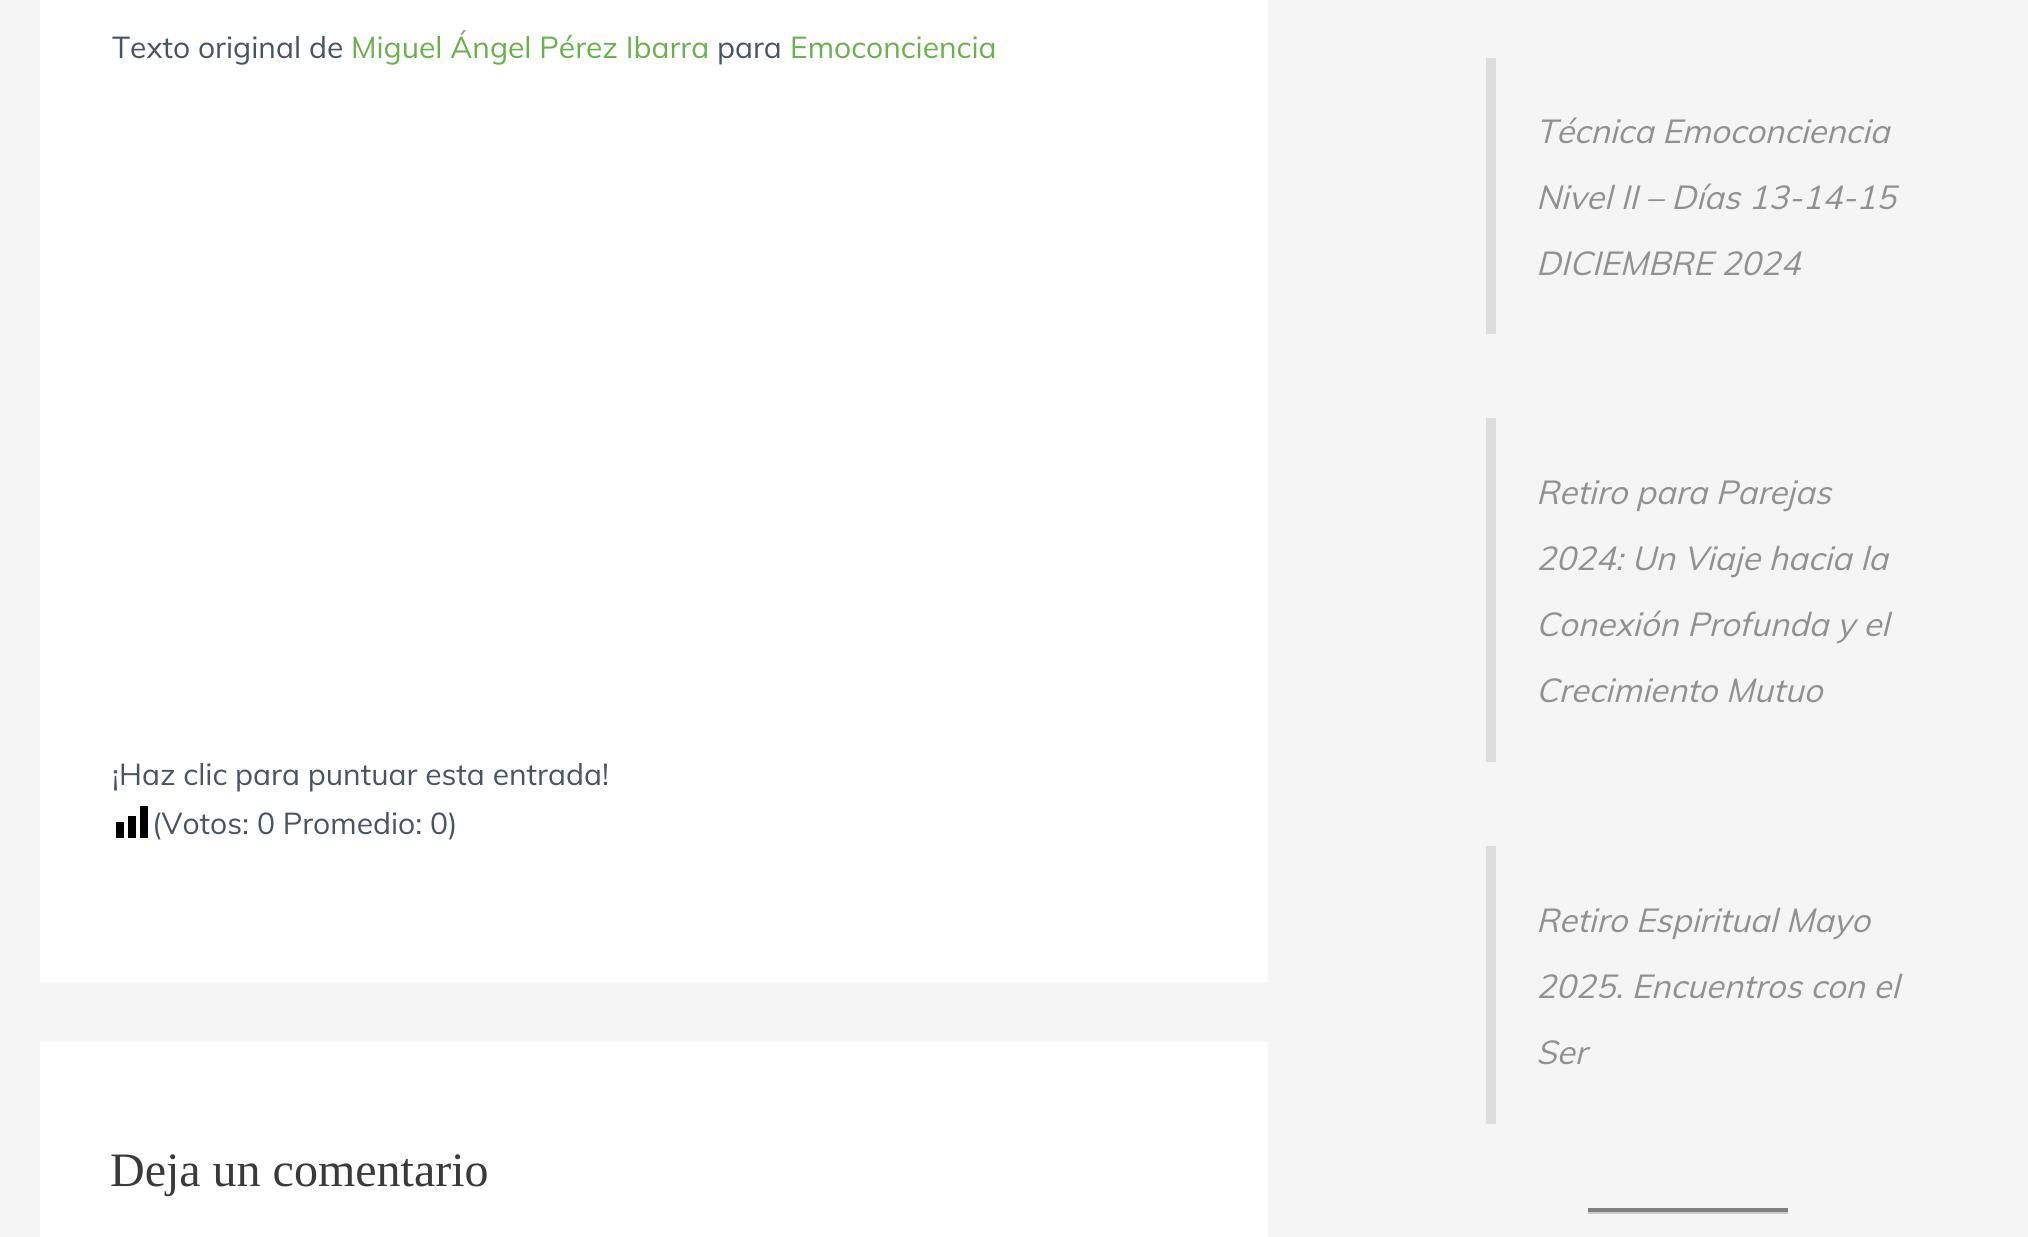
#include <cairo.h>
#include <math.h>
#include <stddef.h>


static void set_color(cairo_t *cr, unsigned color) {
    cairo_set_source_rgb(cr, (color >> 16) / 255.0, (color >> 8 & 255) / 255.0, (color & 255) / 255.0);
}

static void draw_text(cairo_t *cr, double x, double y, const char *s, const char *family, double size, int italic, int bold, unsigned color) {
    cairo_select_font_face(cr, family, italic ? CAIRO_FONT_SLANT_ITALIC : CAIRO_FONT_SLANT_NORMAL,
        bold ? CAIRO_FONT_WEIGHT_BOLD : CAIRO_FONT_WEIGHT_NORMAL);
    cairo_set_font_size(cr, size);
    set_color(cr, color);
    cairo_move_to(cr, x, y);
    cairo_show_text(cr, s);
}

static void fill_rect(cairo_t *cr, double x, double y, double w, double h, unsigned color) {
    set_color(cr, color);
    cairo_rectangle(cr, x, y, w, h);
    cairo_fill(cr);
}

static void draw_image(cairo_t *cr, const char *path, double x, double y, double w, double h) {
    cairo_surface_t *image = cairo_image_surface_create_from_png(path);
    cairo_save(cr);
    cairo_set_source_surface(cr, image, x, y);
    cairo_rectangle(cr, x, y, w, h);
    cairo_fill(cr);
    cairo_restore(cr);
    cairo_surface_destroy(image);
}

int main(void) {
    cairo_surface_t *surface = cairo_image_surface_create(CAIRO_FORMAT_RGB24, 2028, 1237);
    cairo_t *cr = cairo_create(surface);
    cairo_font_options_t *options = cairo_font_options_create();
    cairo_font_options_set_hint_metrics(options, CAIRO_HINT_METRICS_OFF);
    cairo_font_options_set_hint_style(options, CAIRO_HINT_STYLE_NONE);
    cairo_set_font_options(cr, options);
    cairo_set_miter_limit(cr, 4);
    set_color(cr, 0xF5F5F5);
    cairo_paint(cr);
    fill_rect(cr, 40, 0, 1228, 982, 0xFFFFFF);
    draw_text(cr, 112, 58, "Texto original de", "Muli", 30, 0, 0, 0x485460);
    draw_text(cr, 351, 58, "Miguel Ángel Pérez Ibarra", "Muli", 30, 0, 0, 0x6AB04C);
    draw_text(cr, 717, 58, "para", "Muli", 30, 0, 0, 0x485460);
    draw_text(cr, 790, 58, "Emoconciencia", "Muli", 30, 0, 0, 0x6AB04C);
    draw_text(cr, 112, 785, "¡Haz clic para puntuar esta entrada!", "Muli", 30, 0, 0, 0x485460);
    draw_image(cr, "assets/img1.png", 116, 806, 32, 32);
    draw_text(cr, 152, 834, "(Votos: 0 Promedio: 0)", "Muli", 30, 0, 0, 0x485460);
    fill_rect(cr, 40, 1042, 1228, 195, 0xFFFFFF);
    draw_text(cr, 110, 1186, "Deja un comentario", "Liberation Serif", 48, 0, 0, 0x3A3A3A);
    fill_rect(cr, 1486, 58, 10, 276, 0xDDDDDD);
    draw_text(cr, 1536, 143, "Técnica Emoconciencia", "Muli", 33, 1, 0, 0x919191);
    draw_text(cr, 1536, 209, "Nivel II – Días 13-14-15", "Muli", 33, 1, 0, 0x919191);
    draw_text(cr, 1536, 275, "DICIEMBRE 2024", "Muli", 33, 1, 0, 0x919191);
    fill_rect(cr, 1486, 418, 10, 344, 0xDDDDDD);
    draw_text(cr, 1536, 504, "Retiro para Parejas", "Muli", 33, 1, 0, 0x919191);
    draw_text(cr, 1536, 570, "2024: Un Viaje hacia la", "Muli", 33, 1, 0, 0x919191);
    draw_text(cr, 1536, 636, "Conexión Profunda y el", "Muli", 33, 1, 0, 0x919191);
    draw_text(cr, 1536, 702, "Crecimiento Mutuo", "Muli", 33, 1, 0, 0x919191);
    fill_rect(cr, 1486, 846, 10, 278, 0xDDDDDD);
    draw_text(cr, 1536, 932, "Retiro Espiritual Mayo", "Muli", 33, 1, 0, 0x919191);
    draw_text(cr, 1536, 998, "2025. Encuentros con el", "Muli", 33, 1, 0, 0x919191);
    draw_text(cr, 1536, 1064, "Ser", "Muli", 33, 1, 0, 0x919191);
    fill_rect(cr, 1588, 1212, 200, 2, 0xCCCCCC);
    fill_rect(cr, 1588, 1208, 200, 4, 0x808080);
    cairo_surface_write_to_png(surface, "output.png");
    cairo_font_options_destroy(options);
    cairo_destroy(cr);
    cairo_surface_destroy(surface);
    return 0;
}
